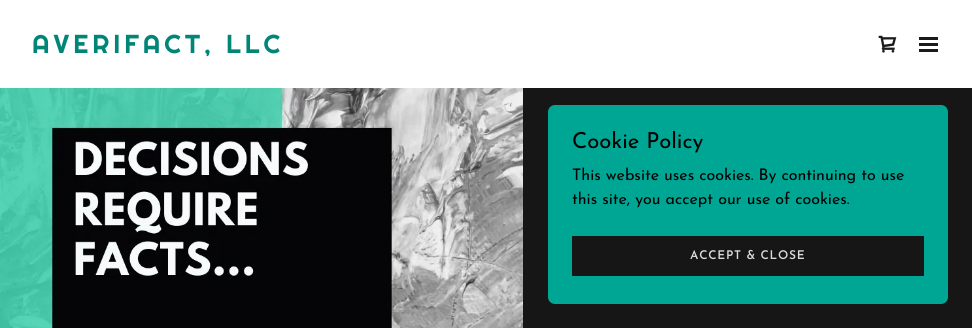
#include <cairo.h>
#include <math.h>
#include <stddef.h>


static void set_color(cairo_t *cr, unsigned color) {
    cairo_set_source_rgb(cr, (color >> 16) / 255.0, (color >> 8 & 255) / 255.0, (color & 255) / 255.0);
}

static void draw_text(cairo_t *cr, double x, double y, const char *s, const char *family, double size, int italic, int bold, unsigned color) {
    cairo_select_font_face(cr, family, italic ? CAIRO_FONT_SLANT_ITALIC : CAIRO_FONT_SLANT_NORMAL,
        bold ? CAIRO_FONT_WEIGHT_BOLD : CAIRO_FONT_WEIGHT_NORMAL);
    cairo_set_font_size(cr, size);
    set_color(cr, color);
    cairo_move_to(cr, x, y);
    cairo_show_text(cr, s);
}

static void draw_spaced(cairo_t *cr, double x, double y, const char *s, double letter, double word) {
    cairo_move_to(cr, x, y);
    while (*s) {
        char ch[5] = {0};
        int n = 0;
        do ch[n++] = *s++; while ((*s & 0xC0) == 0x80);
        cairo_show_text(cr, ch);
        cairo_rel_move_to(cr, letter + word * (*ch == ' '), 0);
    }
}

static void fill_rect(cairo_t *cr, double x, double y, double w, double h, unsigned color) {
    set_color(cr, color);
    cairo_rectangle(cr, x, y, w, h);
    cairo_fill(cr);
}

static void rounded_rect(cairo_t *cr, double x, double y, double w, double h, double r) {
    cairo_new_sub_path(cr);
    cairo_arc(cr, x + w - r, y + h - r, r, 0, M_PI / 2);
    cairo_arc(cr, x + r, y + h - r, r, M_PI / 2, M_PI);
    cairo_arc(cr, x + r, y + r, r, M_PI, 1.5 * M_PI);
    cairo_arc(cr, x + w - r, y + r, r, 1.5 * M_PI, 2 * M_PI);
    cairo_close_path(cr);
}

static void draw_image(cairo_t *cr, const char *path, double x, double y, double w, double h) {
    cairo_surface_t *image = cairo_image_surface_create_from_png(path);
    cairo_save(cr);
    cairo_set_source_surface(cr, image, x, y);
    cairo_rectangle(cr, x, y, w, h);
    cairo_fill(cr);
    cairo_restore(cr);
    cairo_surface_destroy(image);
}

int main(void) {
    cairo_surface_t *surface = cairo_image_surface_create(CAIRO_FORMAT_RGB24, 972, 328);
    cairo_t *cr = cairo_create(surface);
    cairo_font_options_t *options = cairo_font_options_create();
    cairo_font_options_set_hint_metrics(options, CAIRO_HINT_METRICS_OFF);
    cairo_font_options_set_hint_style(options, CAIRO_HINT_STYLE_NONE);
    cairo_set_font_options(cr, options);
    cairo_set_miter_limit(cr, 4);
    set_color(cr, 0x161616);
    cairo_paint(cr);
    fill_rect(cr, 0, 0, 972, 88, 0xFFFFFF);
    cairo_select_font_face(cr, "Righteous", CAIRO_FONT_SLANT_NORMAL, CAIRO_FONT_WEIGHT_NORMAL);
    cairo_set_font_size(cr, 26);
    set_color(cr, 0x008576);
    draw_spaced(cr, 32, 53, "AVERIFACT, LLC", 4, 0);
    draw_image(cr, "assets/img1.png", 878, 35, 19, 18);
    fill_rect(cr, 919, 37, 19, 3, 0x1B1B1B);
    fill_rect(cr, 919, 43, 19, 3, 0x1B1B1B);
    fill_rect(cr, 919, 49, 19, 3, 0x1B1B1B);
    draw_image(cr, "assets/img2.png", 0, 88, 523, 240);
    set_color(cr, 0x00A694);
    rounded_rect(cr, 548, 105, 400, 199, 7);
    cairo_fill(cr);
    draw_text(cr, 572, 148, "Cookie Policy", "Josefin Sans", 22, 0, 0, 0x000000);
    draw_text(cr, 572, 180, "This website uses cookies. By continuing to use", "Josefin Sans", 16, 0, 0, 0x000000);
    draw_text(cr, 572, 204, "this site, you accept our use of cookies.", "Josefin Sans", 16, 0, 0, 0x000000);
    fill_rect(cr, 572, 236, 352, 40, 0x161616);
    cairo_select_font_face(cr, "Josefin Sans SemiBold", CAIRO_FONT_SLANT_NORMAL, CAIRO_FONT_WEIGHT_NORMAL);
    cairo_set_font_size(cr, 12);
    set_color(cr, 0xDBDBDB);
    draw_spaced(cr, 690, 259, "ACCEPT & CLOSE", 0.75, 0);
    cairo_surface_write_to_png(surface, "output.png");
    cairo_font_options_destroy(options);
    cairo_destroy(cr);
    cairo_surface_destroy(surface);
    return 0;
}
